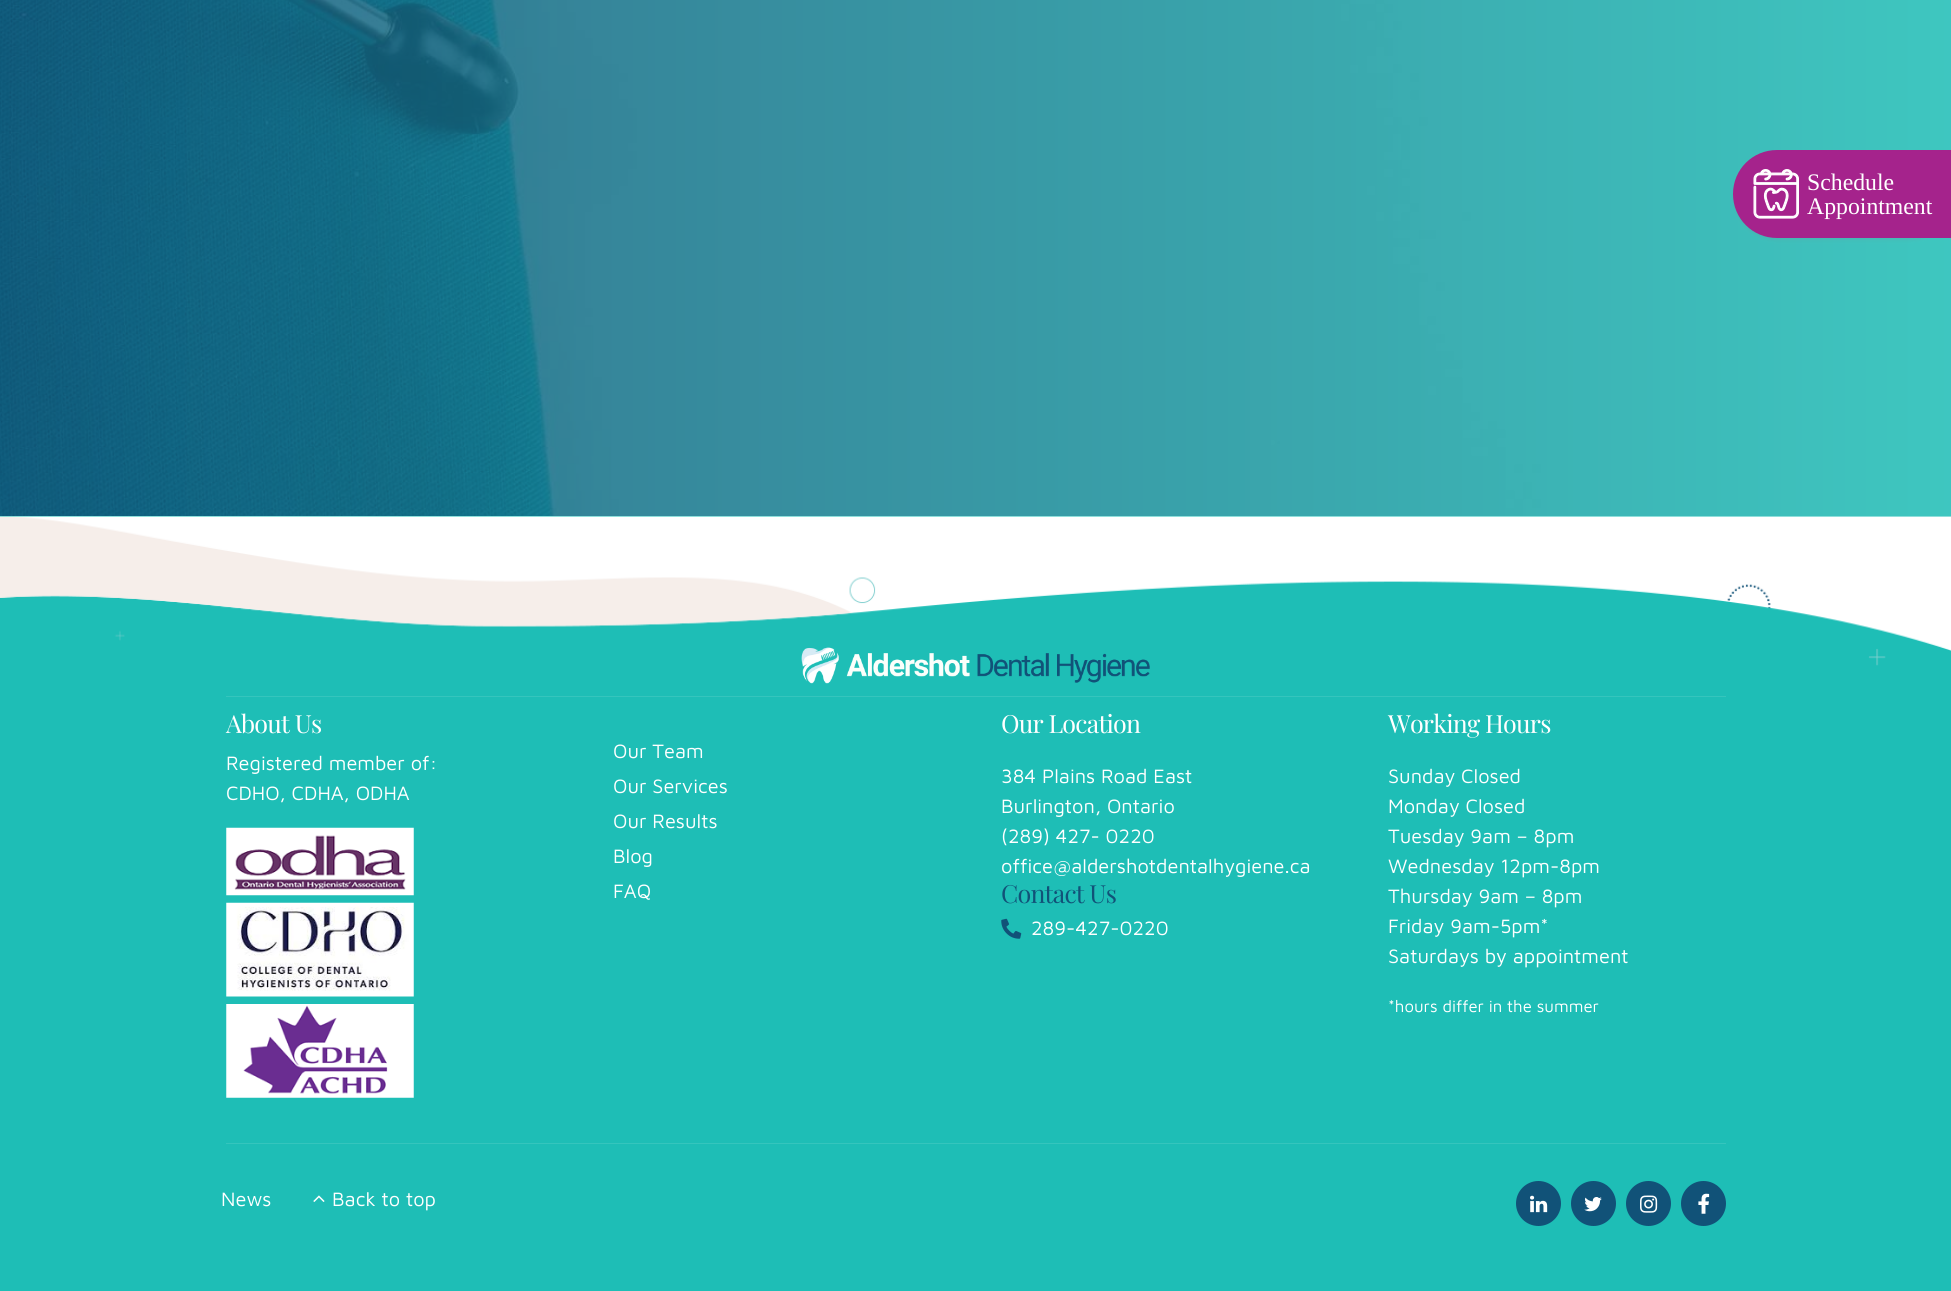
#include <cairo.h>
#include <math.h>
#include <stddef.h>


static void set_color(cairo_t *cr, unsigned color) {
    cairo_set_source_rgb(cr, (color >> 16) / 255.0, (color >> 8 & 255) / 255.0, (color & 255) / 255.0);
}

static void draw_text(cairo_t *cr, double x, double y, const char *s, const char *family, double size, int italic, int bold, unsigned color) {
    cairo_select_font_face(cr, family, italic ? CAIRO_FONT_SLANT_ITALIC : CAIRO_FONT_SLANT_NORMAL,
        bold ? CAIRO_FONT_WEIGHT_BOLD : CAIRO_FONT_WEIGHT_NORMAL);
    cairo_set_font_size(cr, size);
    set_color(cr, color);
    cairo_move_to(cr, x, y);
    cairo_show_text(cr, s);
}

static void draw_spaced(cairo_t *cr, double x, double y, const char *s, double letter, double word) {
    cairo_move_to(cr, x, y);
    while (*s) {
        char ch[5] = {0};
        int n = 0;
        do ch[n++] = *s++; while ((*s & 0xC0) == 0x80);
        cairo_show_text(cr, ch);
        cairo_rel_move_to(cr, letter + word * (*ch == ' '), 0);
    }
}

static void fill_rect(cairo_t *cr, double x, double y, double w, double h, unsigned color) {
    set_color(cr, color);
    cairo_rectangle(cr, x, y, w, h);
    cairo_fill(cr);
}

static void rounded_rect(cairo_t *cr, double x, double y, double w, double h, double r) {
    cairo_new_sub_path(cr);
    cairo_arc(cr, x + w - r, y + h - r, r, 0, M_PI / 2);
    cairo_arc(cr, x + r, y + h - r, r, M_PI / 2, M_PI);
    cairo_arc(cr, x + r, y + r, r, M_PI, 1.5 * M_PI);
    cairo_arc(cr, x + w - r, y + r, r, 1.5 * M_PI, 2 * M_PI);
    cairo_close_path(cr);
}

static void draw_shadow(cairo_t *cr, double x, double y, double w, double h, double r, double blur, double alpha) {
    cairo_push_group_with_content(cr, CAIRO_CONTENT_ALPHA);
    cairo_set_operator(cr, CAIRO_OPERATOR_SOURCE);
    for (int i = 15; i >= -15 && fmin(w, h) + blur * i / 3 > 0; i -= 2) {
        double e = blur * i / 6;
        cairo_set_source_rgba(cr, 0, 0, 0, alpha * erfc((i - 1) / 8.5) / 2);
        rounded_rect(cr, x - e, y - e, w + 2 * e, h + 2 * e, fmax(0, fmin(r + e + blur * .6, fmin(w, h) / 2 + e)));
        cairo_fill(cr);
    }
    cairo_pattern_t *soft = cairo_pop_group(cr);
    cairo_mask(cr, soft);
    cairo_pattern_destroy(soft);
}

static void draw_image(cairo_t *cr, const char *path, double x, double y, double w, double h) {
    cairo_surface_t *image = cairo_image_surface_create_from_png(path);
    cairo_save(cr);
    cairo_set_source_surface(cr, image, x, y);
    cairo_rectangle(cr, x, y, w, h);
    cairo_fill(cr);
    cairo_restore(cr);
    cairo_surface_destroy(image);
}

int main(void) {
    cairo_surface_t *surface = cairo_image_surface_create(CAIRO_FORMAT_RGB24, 1951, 1291);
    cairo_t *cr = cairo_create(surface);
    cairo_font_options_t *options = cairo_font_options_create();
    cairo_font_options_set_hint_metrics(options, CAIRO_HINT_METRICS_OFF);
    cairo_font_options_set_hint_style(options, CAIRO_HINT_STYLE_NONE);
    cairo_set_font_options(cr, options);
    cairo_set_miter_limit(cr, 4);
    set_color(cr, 0xFFFFFF);
    cairo_paint(cr);
    draw_image(cr, "assets/img2.png", 0, 0, 1951, 516);
    set_color(cr, 0x808080);
    draw_shadow(cr, 1734, 153, 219, 87, 43.5, 2, 0.15);
    set_color(cr, 0xA5238C);
    cairo_new_path(cr);
    cairo_move_to(cr, 1777, 150);
    cairo_line_to(cr, 1951, 150);
    cairo_line_to(cr, 1951, 238);
    cairo_line_to(cr, 1777, 238);
    cairo_curve_to(cr, 1752.5, 238, 1733, 218.5, 1733, 194);
    cairo_curve_to(cr, 1733, 169.5, 1752.5, 150, 1777, 150);
    cairo_close_path(cr);
    cairo_fill(cr);
    draw_image(cr, "assets/img1.png", 1753, 169, 46, 50);
    draw_text(cr, 1807, 190, "Schedule", "Liberation Serif", 23.75, 0, 0, 0xFFFFFF);
    draw_text(cr, 1807, 214, "Appointment", "Liberation Serif", 23.75, 0, 0, 0xFFFFFF);
    fill_rect(cr, 0, 516, 1951, 775, 0x1EBEB6);
    draw_image(cr, "assets/img3.png", 0, 516, 1951, 150);
    draw_image(cr, "assets/img4.png", 801, 647, 349, 37);
    fill_rect(cr, 226, 696, 1500, 1, 0x35C5BD);
    cairo_select_font_face(cr, "Playfair Display", CAIRO_FONT_SLANT_NORMAL, CAIRO_FONT_WEIGHT_NORMAL);
    cairo_set_font_size(cr, 25);
    set_color(cr, 0xFFFFFF);
    draw_spaced(cr, 226, 733, "About Us", -0.75, 0);
    draw_text(cr, 226, 770, "Registered member of:", "Maven Pro", 20, 0, 0, 0xFFFFFF);
    draw_text(cr, 226, 800, "CDHO, CDHA, ODHA", "Maven Pro", 20, 0, 0, 0xFFFFFF);
    draw_image(cr, "assets/img5.png", 226, 827, 188, 69);
    draw_image(cr, "assets/img6.png", 226, 902, 188, 95);
    draw_image(cr, "assets/img7.png", 226, 1004, 188, 94);
    draw_text(cr, 613, 758, "Our Team", "Maven Pro", 20, 0, 0, 0xFFFFFF);
    draw_text(cr, 613, 793, "Our Services", "Maven Pro", 20, 0, 0, 0xFFFFFF);
    draw_text(cr, 613, 828, "Our Results", "Maven Pro", 20, 0, 0, 0xFFFFFF);
    draw_text(cr, 613, 863, "Blog", "Maven Pro", 20, 0, 0, 0xFFFFFF);
    draw_text(cr, 613, 898, "FAQ", "Maven Pro", 20, 0, 0, 0xFFFFFF);
    cairo_select_font_face(cr, "Playfair Display", CAIRO_FONT_SLANT_NORMAL, CAIRO_FONT_WEIGHT_NORMAL);
    cairo_set_font_size(cr, 25);
    draw_spaced(cr, 1001, 733, "Our Location", -0.75, 0);
    draw_text(cr, 1001, 783, "384 Plains Road East", "Maven Pro", 20, 0, 0, 0xFFFFFF);
    draw_text(cr, 1001, 813, "Burlington, Ontario", "Maven Pro", 20, 0, 0, 0xFFFFFF);
    draw_text(cr, 1001, 843, "(289) 427- 0220", "Maven Pro", 20, 0, 0, 0xFFFFFF);
    draw_text(cr, 1001, 873, "office@aldershotdentalhygiene.ca", "Maven Pro", 20, 0, 0, 0xFFFFFF);
    cairo_select_font_face(cr, "Playfair Display", CAIRO_FONT_SLANT_NORMAL, CAIRO_FONT_WEIGHT_NORMAL);
    cairo_set_font_size(cr, 25);
    set_color(cr, 0x115278);
    draw_spaced(cr, 1001, 903, "Contact Us", -0.75, 0);
    draw_image(cr, "assets/img8.png", 1001, 918, 21, 21);
    draw_text(cr, 1031, 935, "289-427-0220", "Maven Pro", 20, 0, 0, 0xFFFFFF);
    cairo_select_font_face(cr, "Playfair Display", CAIRO_FONT_SLANT_NORMAL, CAIRO_FONT_WEIGHT_NORMAL);
    cairo_set_font_size(cr, 25);
    draw_spaced(cr, 1388, 733, "Working Hours", -0.75, 0);
    draw_text(cr, 1388, 783, "Sunday Closed", "Maven Pro", 20, 0, 0, 0xFFFFFF);
    draw_text(cr, 1388, 813, "Monday Closed", "Maven Pro", 20, 0, 0, 0xFFFFFF);
    draw_text(cr, 1388, 843, "Tuesday 9am – 8pm", "Maven Pro", 20, 0, 0, 0xFFFFFF);
    draw_text(cr, 1388, 873, "Wednesday 12pm-8pm", "Maven Pro", 20, 0, 0, 0xFFFFFF);
    draw_text(cr, 1388, 903, "Thursday 9am – 8pm", "Maven Pro", 20, 0, 0, 0xFFFFFF);
    draw_text(cr, 1388, 933, "Friday 9am-5pm*", "Maven Pro", 20, 0, 0, 0xFFFFFF);
    draw_text(cr, 1388, 963, "Saturdays by appointment", "Maven Pro", 20, 0, 0, 0xFFFFFF);
    draw_text(cr, 1388, 1012, "*hours differ in the summer", "Maven Pro", 16.7, 0, 0, 0xFFFFFF);
    fill_rect(cr, 226, 1143, 1500, 1, 0x35C5BD);
    draw_text(cr, 221, 1206, "News", "Maven Pro", 20, 0, 0, 0xFFFFFF);
    draw_image(cr, "assets/img9.png", 313, 1195, 12, 7);
    draw_text(cr, 332, 1206, "Back to top", "Maven Pro", 20, 0, 0, 0xFFFFFF);
    set_color(cr, 0x115278);
    cairo_new_path(cr);
    cairo_arc(cr, 1538.5, 1203.5, 22.5, 0, 2 * M_PI);
    cairo_fill(cr);
    draw_image(cr, "assets/img10.png", 1530, 1195, 18, 18);
    cairo_arc(cr, 1593.5, 1203.5, 22.5, 0, 2 * M_PI);
    cairo_fill(cr);
    draw_image(cr, "assets/img11.png", 1584, 1197, 18, 15);
    cairo_arc(cr, 1648.5, 1203.5, 22.5, 0, 2 * M_PI);
    cairo_fill(cr);
    draw_image(cr, "assets/img12.png", 1640, 1195, 18, 18);
    cairo_arc(cr, 1703.5, 1203.5, 22.5, 0, 2 * M_PI);
    cairo_fill(cr);
    draw_image(cr, "assets/img13.png", 1698, 1193, 12, 21);
    cairo_surface_write_to_png(surface, "output.png");
    cairo_font_options_destroy(options);
    cairo_destroy(cr);
    cairo_surface_destroy(surface);
    return 0;
}
